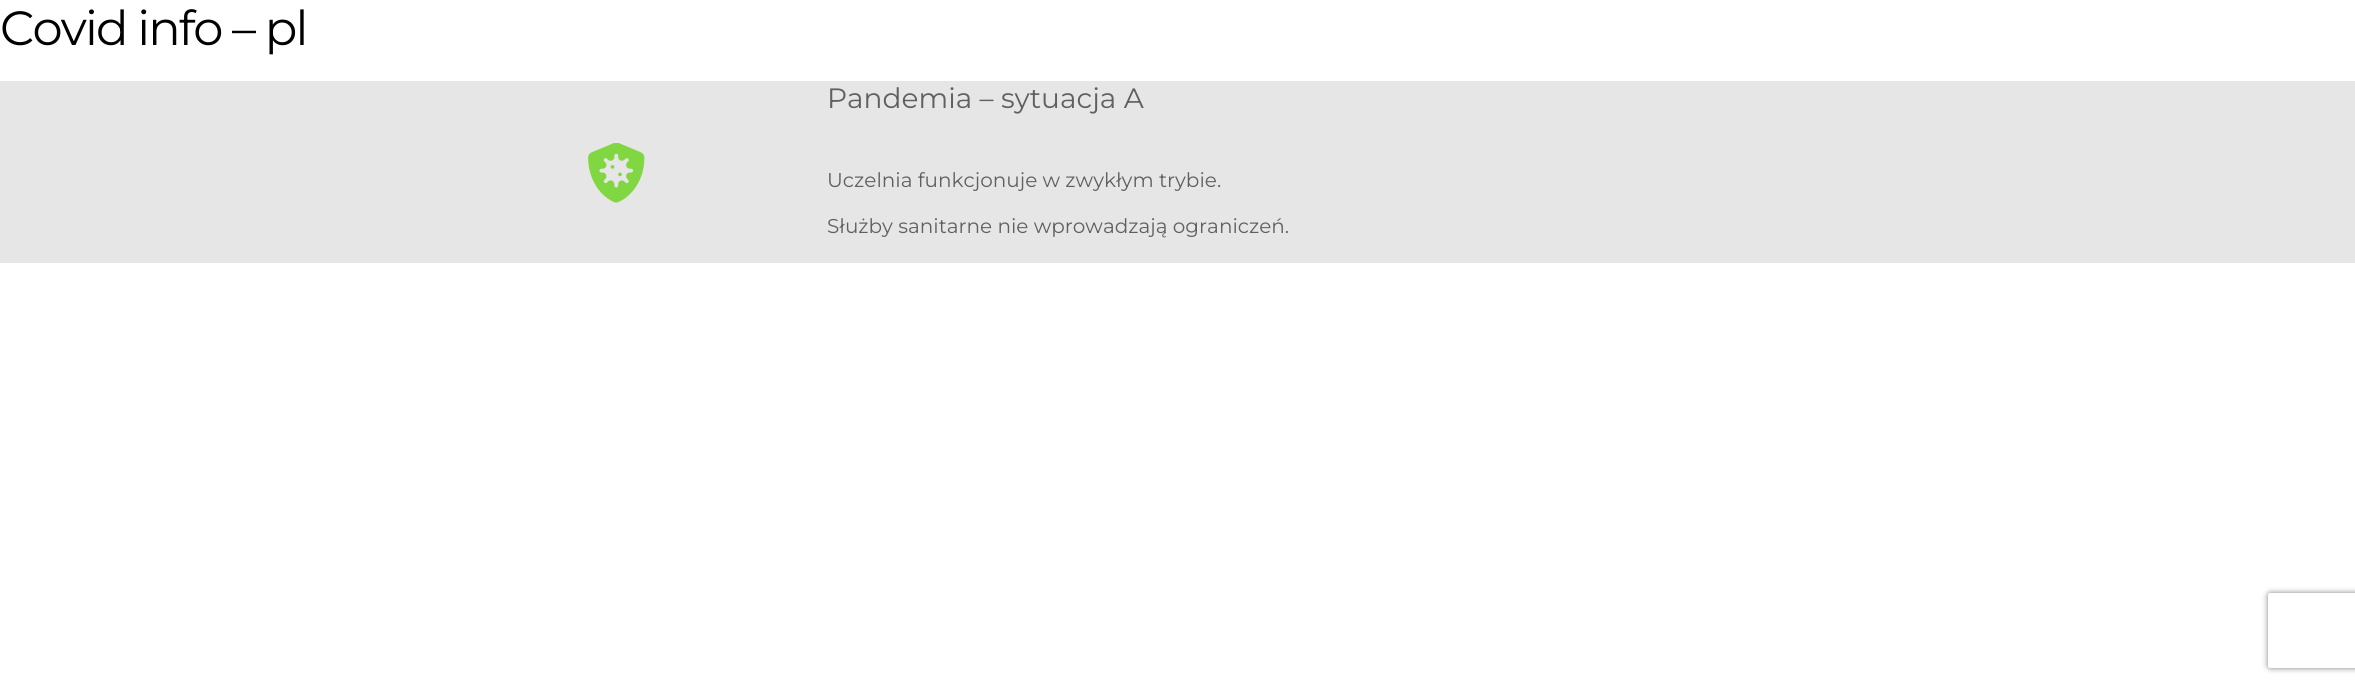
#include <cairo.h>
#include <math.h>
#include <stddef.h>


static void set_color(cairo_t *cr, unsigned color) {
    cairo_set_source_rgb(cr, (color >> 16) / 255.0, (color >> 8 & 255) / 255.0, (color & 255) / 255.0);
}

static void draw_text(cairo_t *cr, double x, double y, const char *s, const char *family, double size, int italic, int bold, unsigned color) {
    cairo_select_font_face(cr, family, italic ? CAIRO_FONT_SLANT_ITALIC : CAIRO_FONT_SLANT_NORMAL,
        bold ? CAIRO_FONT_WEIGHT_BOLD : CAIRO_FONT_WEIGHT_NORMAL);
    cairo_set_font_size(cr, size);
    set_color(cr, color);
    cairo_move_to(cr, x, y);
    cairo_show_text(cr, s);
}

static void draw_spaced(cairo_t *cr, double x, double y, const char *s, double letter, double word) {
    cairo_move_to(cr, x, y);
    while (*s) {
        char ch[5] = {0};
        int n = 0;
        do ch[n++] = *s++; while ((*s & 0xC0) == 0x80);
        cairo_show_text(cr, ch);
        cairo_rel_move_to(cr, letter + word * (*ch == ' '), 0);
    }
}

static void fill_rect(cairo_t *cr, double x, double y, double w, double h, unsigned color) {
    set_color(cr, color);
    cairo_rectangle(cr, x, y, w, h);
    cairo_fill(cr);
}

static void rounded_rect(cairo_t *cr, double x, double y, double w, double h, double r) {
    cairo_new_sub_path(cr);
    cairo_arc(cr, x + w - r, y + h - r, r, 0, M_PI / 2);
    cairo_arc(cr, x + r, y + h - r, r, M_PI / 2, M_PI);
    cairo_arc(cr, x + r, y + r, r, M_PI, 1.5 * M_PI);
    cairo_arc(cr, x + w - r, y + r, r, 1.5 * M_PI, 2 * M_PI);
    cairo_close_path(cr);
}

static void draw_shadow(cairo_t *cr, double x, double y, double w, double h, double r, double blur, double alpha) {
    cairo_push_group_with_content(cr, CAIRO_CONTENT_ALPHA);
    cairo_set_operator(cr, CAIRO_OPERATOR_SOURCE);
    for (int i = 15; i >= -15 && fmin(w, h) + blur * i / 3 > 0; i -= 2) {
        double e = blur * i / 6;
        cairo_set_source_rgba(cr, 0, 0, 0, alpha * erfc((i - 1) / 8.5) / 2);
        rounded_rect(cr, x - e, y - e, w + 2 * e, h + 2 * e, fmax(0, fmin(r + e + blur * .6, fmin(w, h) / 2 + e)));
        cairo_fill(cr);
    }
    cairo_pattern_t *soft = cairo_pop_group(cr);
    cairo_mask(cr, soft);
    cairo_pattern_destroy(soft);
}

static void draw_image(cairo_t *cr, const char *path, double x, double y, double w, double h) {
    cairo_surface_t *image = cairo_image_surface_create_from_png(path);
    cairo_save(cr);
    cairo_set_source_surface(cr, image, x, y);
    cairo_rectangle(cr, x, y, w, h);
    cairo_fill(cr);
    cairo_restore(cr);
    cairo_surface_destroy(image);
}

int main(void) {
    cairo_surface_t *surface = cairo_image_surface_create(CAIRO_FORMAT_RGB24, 2355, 685);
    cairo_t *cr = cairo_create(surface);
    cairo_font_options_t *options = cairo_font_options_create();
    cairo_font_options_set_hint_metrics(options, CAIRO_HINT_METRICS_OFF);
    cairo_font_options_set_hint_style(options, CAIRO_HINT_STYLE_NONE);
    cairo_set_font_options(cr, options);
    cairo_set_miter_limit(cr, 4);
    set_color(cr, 0xFFFFFF);
    cairo_paint(cr);
    cairo_select_font_face(cr, "Montserrat Thin", CAIRO_FONT_SLANT_NORMAL, CAIRO_FONT_WEIGHT_NORMAL);
    cairo_set_font_size(cr, 48);
    set_color(cr, 0x000000);
    draw_spaced(cr, 0, 45, "Covid info – pl", -1.9, 0);
    fill_rect(cr, 0, 81, 2355, 182, 0xE6E6E6);
    draw_image(cr, "assets/img1.png", 588, 143, 57, 60);
    draw_text(cr, 827, 108, "Pandemia – sytuacja A", "Montserrat Thin", 28, 0, 0, 0x606060);
    draw_text(cr, 827, 187, "Uczelnia funkcjonuje w zwykłym trybie.", "Montserrat Thin", 20, 0, 0, 0x606060);
    draw_text(cr, 827, 233, "Służby sanitarne nie wprowadzają ograniczeń.", "Montserrat Thin", 20, 0, 0, 0x606060);
    cairo_save(cr);
    cairo_set_fill_rule(cr, CAIRO_FILL_RULE_EVEN_ODD);
    cairo_new_path(cr);
    cairo_move_to(cr, 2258, 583);
    cairo_line_to(cr, 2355, 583);
    cairo_line_to(cr, 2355, 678);
    cairo_line_to(cr, 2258, 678);
    cairo_close_path(cr);
    cairo_move_to(cr, 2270.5, 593);
    cairo_line_to(cr, 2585.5, 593);
    cairo_curve_to(cr, 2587, 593, 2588, 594, 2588, 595.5);
    cairo_line_to(cr, 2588, 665.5);
    cairo_curve_to(cr, 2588, 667, 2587, 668, 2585.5, 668);
    cairo_line_to(cr, 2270.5, 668);
    cairo_curve_to(cr, 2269, 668, 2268, 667, 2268, 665.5);
    cairo_line_to(cr, 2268, 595.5);
    cairo_curve_to(cr, 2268, 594, 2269, 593, 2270.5, 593);
    cairo_close_path(cr);
    cairo_clip(cr);
    set_color(cr, 0x808080);
    draw_shadow(cr, 2268, 593, 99, 75, 2.5, 3, 1);
    cairo_restore(cr);
    cairo_surface_write_to_png(surface, "output.png");
    cairo_font_options_destroy(options);
    cairo_destroy(cr);
    cairo_surface_destroy(surface);
    return 0;
}
